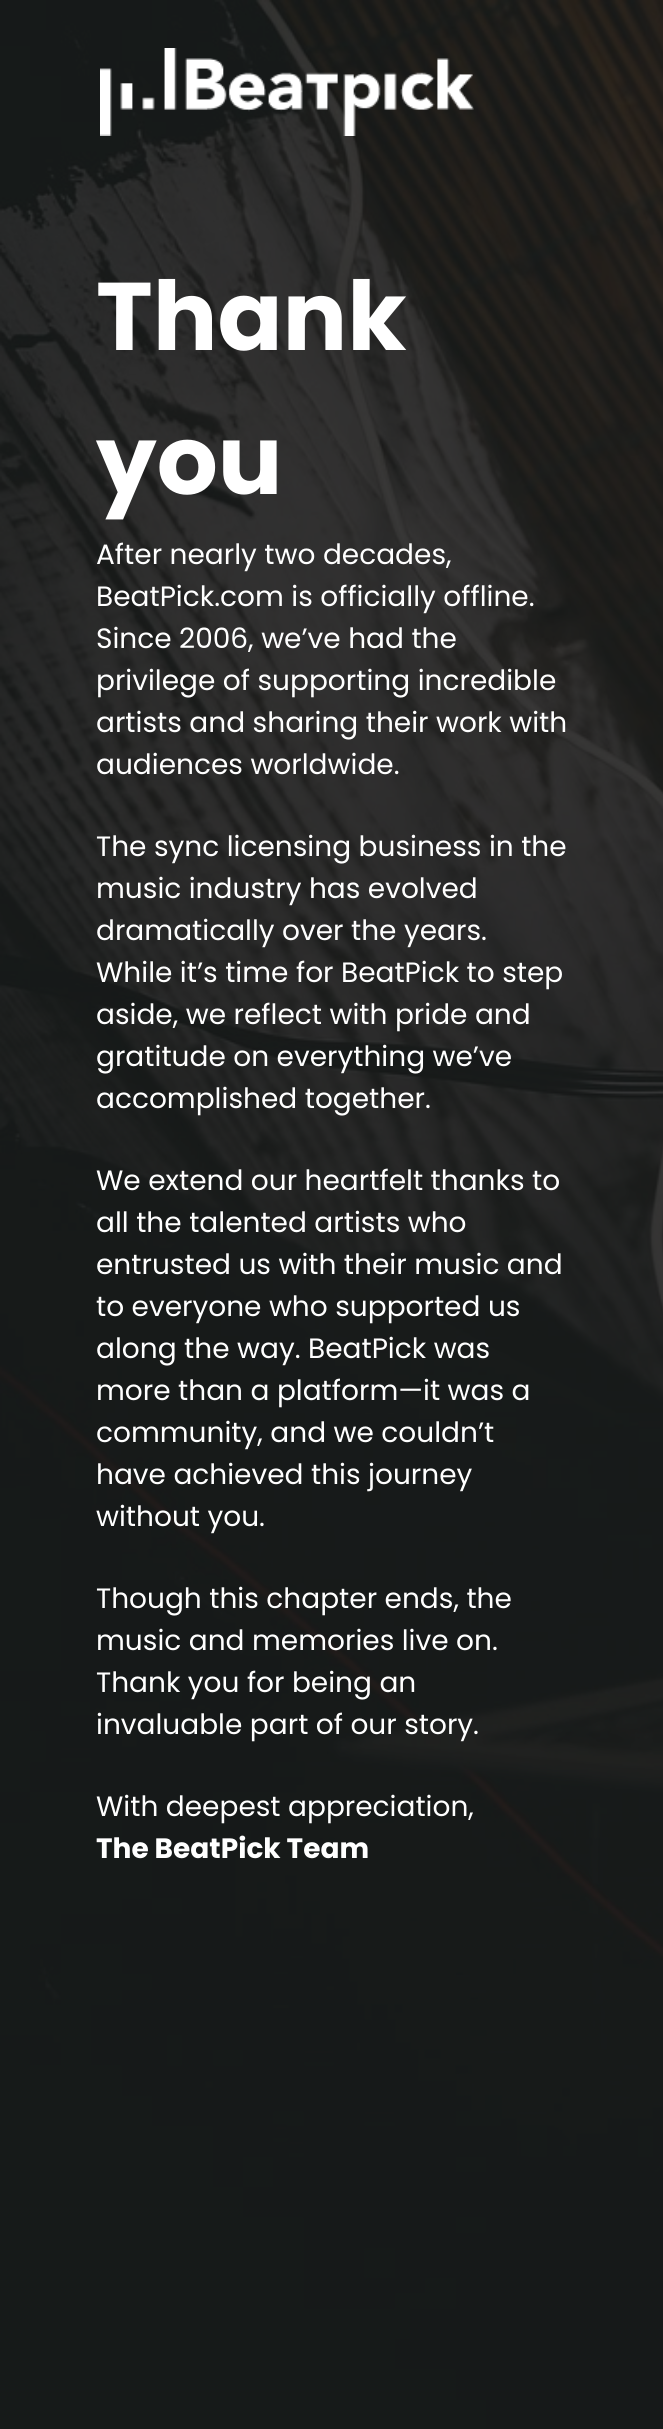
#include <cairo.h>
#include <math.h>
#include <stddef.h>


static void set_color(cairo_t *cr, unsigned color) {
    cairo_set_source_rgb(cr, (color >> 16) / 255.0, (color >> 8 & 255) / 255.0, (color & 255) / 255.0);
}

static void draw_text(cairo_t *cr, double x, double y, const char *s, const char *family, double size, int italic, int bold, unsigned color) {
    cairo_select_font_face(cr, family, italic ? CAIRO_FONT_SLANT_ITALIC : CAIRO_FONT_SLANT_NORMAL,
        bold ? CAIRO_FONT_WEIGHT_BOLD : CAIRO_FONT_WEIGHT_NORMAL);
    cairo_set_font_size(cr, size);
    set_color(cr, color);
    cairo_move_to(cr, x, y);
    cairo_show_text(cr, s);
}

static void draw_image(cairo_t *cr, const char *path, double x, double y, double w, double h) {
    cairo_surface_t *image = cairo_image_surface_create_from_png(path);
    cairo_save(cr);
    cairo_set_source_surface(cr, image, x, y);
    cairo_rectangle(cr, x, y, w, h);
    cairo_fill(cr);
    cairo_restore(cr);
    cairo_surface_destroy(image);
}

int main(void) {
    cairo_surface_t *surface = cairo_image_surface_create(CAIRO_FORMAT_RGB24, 663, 2429);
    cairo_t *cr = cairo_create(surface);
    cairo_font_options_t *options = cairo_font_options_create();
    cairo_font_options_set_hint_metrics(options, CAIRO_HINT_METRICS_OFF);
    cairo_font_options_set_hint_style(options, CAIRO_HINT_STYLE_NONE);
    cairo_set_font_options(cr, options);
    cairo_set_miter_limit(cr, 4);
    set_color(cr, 0xFFFFFF);
    cairo_paint(cr);
    draw_image(cr, "assets/img1.png", 0, 0, 663, 2429);
    draw_image(cr, "assets/img2.png", 100, 48, 374, 88);
    draw_text(cr, 96, 350, "Thank", "Poppins", 96, 0, 1, 0xFFFFFF);
    draw_text(cr, 96, 494, "you", "Poppins", 96, 0, 1, 0xFFFFFF);
    draw_text(cr, 96, 564, "After nearly two decades,", "Poppins", 28, 0, 0, 0xFFFFFF);
    draw_text(cr, 96, 606, "BeatPick.com is officially offline.", "Poppins", 28, 0, 0, 0xFFFFFF);
    draw_text(cr, 96, 648, "Since 2006, we’ve had the", "Poppins", 28, 0, 0, 0xFFFFFF);
    draw_text(cr, 96, 690, "privilege of supporting incredible", "Poppins", 28, 0, 0, 0xFFFFFF);
    draw_text(cr, 96, 732, "artists and sharing their work with", "Poppins", 28, 0, 0, 0xFFFFFF);
    draw_text(cr, 96, 774, "audiences worldwide.", "Poppins", 28, 0, 0, 0xFFFFFF);
    draw_text(cr, 96, 856, "The sync licensing business in the", "Poppins", 28, 0, 0, 0xFFFFFF);
    draw_text(cr, 96, 898, "music industry has evolved", "Poppins", 28, 0, 0, 0xFFFFFF);
    draw_text(cr, 96, 940, "dramatically over the years.", "Poppins", 28, 0, 0, 0xFFFFFF);
    draw_text(cr, 96, 982, "While it’s time for BeatPick to step", "Poppins", 28, 0, 0, 0xFFFFFF);
    draw_text(cr, 96, 1024, "aside, we reflect with pride and", "Poppins", 28, 0, 0, 0xFFFFFF);
    draw_text(cr, 96, 1066, "gratitude on everything we’ve", "Poppins", 28, 0, 0, 0xFFFFFF);
    draw_text(cr, 96, 1108, "accomplished together.", "Poppins", 28, 0, 0, 0xFFFFFF);
    draw_text(cr, 96, 1190, "We extend our heartfelt thanks to", "Poppins", 28, 0, 0, 0xFFFFFF);
    draw_text(cr, 96, 1232, "all the talented artists who", "Poppins", 28, 0, 0, 0xFFFFFF);
    draw_text(cr, 96, 1274, "entrusted us with their music and", "Poppins", 28, 0, 0, 0xFFFFFF);
    draw_text(cr, 96, 1316, "to everyone who supported us", "Poppins", 28, 0, 0, 0xFFFFFF);
    draw_text(cr, 96, 1358, "along the way. BeatPick was", "Poppins", 28, 0, 0, 0xFFFFFF);
    draw_text(cr, 96, 1400, "more than a platform—it was a", "Poppins", 28, 0, 0, 0xFFFFFF);
    draw_text(cr, 96, 1442, "community, and we couldn’t", "Poppins", 28, 0, 0, 0xFFFFFF);
    draw_text(cr, 96, 1484, "have achieved this journey", "Poppins", 28, 0, 0, 0xFFFFFF);
    draw_text(cr, 96, 1526, "without you.", "Poppins", 28, 0, 0, 0xFFFFFF);
    draw_text(cr, 96, 1608, "Though this chapter ends, the", "Poppins", 28, 0, 0, 0xFFFFFF);
    draw_text(cr, 96, 1650, "music and memories live on.", "Poppins", 28, 0, 0, 0xFFFFFF);
    draw_text(cr, 96, 1692, "Thank you for being an", "Poppins", 28, 0, 0, 0xFFFFFF);
    draw_text(cr, 96, 1734, "invaluable part of our story.", "Poppins", 28, 0, 0, 0xFFFFFF);
    draw_text(cr, 96, 1816, "With deepest appreciation,", "Poppins", 28, 0, 0, 0xFFFFFF);
    draw_text(cr, 96, 1858, "The BeatPick Team", "Poppins", 28, 0, 1, 0xFFFFFF);
    cairo_surface_write_to_png(surface, "output.png");
    cairo_font_options_destroy(options);
    cairo_destroy(cr);
    cairo_surface_destroy(surface);
    return 0;
}
